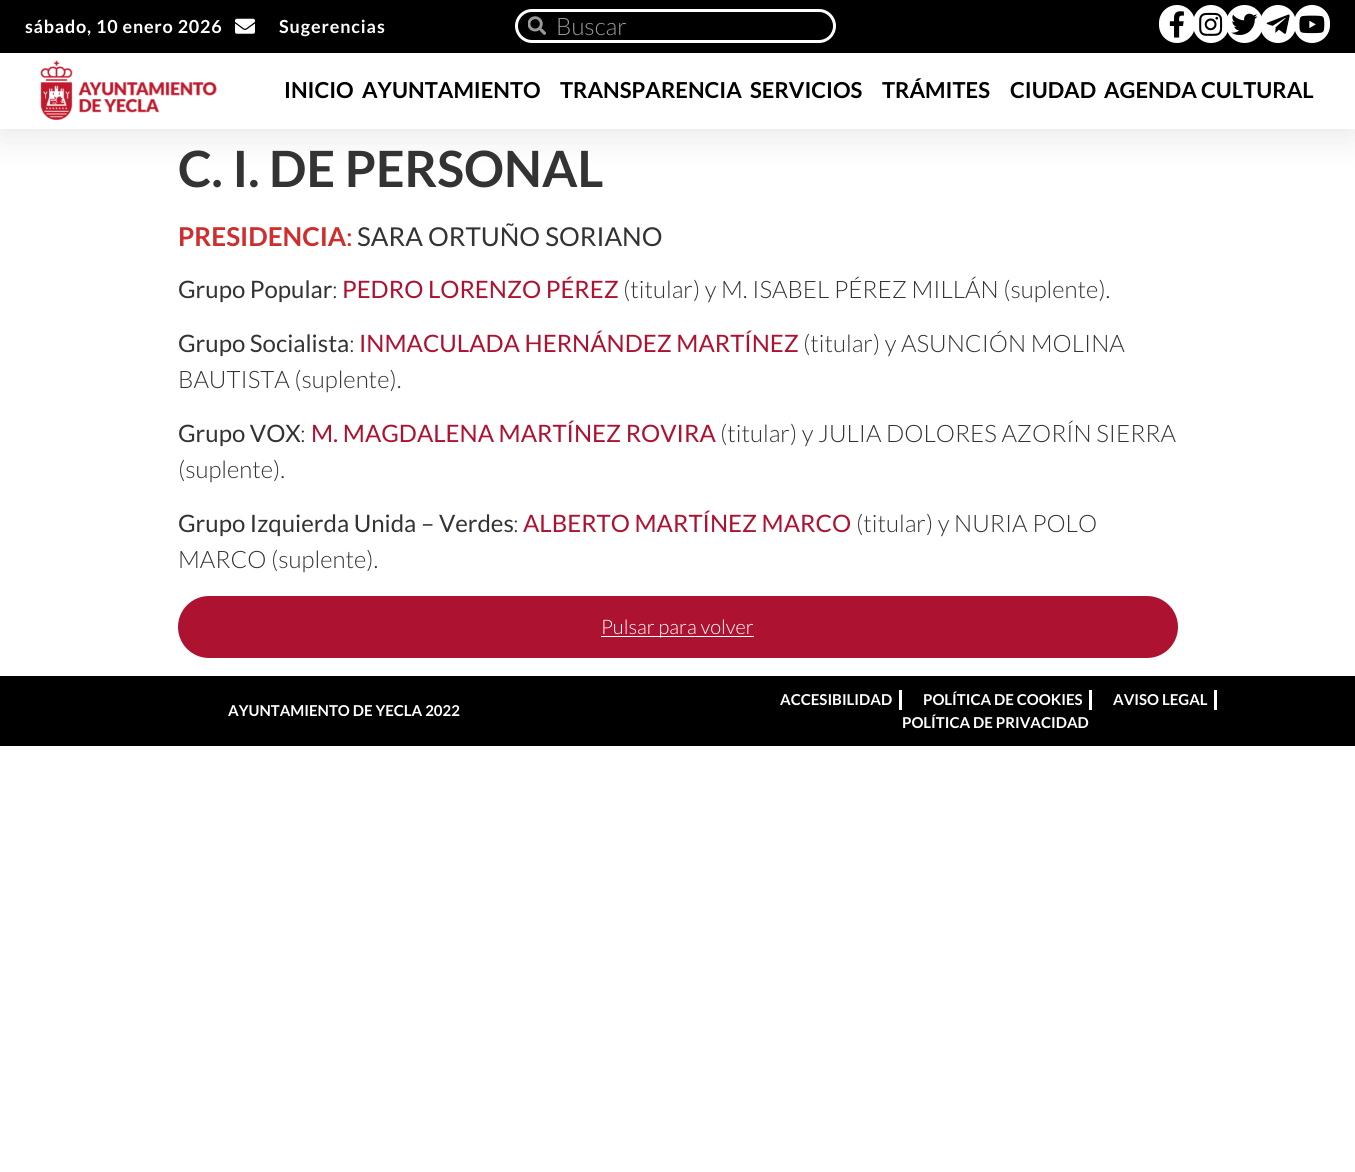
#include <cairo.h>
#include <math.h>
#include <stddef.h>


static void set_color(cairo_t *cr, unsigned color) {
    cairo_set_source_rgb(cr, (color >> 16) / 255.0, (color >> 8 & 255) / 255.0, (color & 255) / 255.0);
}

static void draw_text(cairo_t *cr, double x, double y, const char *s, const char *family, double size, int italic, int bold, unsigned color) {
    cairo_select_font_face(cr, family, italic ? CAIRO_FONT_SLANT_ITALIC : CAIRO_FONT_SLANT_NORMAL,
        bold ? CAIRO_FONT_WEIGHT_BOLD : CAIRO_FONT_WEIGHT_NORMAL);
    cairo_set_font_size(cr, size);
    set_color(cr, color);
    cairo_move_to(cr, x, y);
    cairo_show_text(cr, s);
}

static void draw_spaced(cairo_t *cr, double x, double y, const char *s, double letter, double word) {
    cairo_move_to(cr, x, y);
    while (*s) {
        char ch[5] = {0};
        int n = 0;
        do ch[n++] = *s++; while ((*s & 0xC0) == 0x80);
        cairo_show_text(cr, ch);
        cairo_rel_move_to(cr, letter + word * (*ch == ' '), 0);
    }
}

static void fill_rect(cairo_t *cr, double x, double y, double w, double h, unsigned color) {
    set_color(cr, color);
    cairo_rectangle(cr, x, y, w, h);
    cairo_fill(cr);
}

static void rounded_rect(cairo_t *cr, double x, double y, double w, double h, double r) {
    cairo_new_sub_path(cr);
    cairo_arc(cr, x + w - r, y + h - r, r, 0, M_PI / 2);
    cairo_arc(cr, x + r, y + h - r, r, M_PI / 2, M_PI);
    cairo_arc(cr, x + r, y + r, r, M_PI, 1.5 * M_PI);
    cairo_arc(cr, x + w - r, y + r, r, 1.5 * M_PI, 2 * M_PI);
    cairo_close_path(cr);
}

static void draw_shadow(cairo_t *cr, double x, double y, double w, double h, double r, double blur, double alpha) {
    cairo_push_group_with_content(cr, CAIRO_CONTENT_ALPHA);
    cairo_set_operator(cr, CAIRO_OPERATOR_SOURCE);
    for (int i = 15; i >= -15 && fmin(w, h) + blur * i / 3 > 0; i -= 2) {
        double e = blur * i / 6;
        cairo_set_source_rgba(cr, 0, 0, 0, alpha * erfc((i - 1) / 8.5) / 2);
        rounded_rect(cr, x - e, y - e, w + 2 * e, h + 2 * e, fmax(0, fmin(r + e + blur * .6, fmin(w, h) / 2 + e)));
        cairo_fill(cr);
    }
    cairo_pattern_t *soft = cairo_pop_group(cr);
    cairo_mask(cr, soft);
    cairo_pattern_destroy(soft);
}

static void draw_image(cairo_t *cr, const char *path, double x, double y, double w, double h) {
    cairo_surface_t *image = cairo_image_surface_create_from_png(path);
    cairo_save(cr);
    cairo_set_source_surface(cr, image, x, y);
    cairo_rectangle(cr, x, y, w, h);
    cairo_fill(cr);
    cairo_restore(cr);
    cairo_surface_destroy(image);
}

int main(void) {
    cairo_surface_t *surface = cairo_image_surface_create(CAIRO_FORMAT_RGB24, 1355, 1172);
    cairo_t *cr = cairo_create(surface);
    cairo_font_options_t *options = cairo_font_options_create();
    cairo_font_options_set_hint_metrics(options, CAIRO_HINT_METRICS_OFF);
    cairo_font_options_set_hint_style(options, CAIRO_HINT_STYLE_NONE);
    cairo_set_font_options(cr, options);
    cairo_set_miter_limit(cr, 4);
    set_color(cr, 0xFFFFFF);
    cairo_paint(cr);
    set_color(cr, 0x000000);
    draw_shadow(cr, 0, 6, 1355, 129, 0, 19, 0.1);
    fill_rect(cr, 0, 0, 1355, 53, 0x000000);
    cairo_select_font_face(cr, "Lato", CAIRO_FONT_SLANT_NORMAL, CAIRO_FONT_WEIGHT_BOLD);
    cairo_set_font_size(cr, 18);
    set_color(cr, 0xFFFFFF);
    draw_spaced(cr, 25, 33, "sábado, 10 enero 2026", 0.75, 0);
    draw_image(cr, "assets/img1.png", 235, 18, 20, 16);
    draw_spaced(cr, 279, 33, "Sugerencias", 0.9, 0);
    rounded_rect(cr, 516.5, 10.5, 318, 31, 15.5);
    cairo_set_line_width(cr, 3);
    cairo_stroke(cr);
    draw_image(cr, "assets/img2.png", 528, 16, 18, 19);
    draw_text(cr, 556, 35, "Buscar", "Lato Light", 24, 0, 0, 0x999999);
    set_color(cr, 0xFFFFFF);
    rounded_rect(cr, 1159, 5, 36, 38, 18);
    cairo_fill(cr);
    draw_image(cr, "assets/img3.png", 1169, 11, 15, 27);
    rounded_rect(cr, 1193, 5, 36, 38, 18);
    cairo_fill(cr);
    draw_image(cr, "assets/img4.png", 1199, 12, 24, 24);
    rounded_rect(cr, 1226, 5, 37, 38, 18.5);
    cairo_fill(cr);
    draw_image(cr, "assets/img5.png", 1231, 13, 27, 22);
    rounded_rect(cr, 1260, 5, 36, 38, 18);
    cairo_fill(cr);
    draw_image(cr, "assets/img6.png", 1266, 14, 24, 20);
    rounded_rect(cr, 1294, 5, 36, 38, 18);
    cairo_fill(cr);
    draw_image(cr, "assets/img7.png", 1299, 15, 26, 19);
    fill_rect(cr, 0, 53, 1355, 76, 0xFFFFFF);
    draw_image(cr, "assets/img8.png", 40, 60, 177, 61);
    draw_text(cr, 284, 98, "INICIO", "Lato", 22, 0, 1, 0x000000);
    draw_text(cr, 362, 98, "AYUNTAMIENTO", "Lato", 22, 0, 1, 0x000000);
    draw_text(cr, 560, 98, "TRANSPARENCIA", "Lato", 22, 0, 1, 0x000000);
    draw_text(cr, 750, 98, "SERVICIOS", "Lato", 22, 0, 1, 0x000000);
    draw_text(cr, 882, 98, "TRÁMITES", "Lato", 22, 0, 1, 0x000000);
    draw_text(cr, 1010, 98, "CIUDAD", "Lato", 22, 0, 1, 0x000000);
    draw_text(cr, 1104, 98, "AGENDA CULTURAL", "Lato", 22, 0, 1, 0x000000);
    draw_text(cr, 178, 187, "C. I. DE PERSONAL", "Lato", 50, 0, 1, 0x333333);
    draw_text(cr, 178, 246, "PRESIDENCIA", "Lato", 26, 0, 1, 0xCF2E2E);
    draw_text(cr, 346, 246, ":", "Lato", 26, 0, 0, 0xCF2E2E);
    draw_text(cr, 357, 246, "SARA ORTUÑO SORIANO", "Lato", 26, 0, 0, 0x333333);
    draw_text(cr, 178, 298, "Grupo Popular", "Lato", 24, 0, 0, 0x333333);
    draw_text(cr, 332, 298, ":", "Lato Light", 24, 0, 0, 0x333333);
    draw_text(cr, 342, 298, "PEDRO LORENZO PÉREZ", "Lato", 24, 0, 0, 0xAE1231);
    draw_text(cr, 623, 298, "(titular) y M. ISABEL PÉREZ MILLÁN (suplente).", "Lato Light", 24, 0, 0, 0x333333);
    draw_text(cr, 178, 352, "Grupo Socialista", "Lato", 24, 0, 0, 0x333333);
    draw_text(cr, 349, 352, ":", "Lato Light", 24, 0, 0, 0x333333);
    draw_text(cr, 359, 352, "INMACULADA HERNÁNDEZ MARTÍNEZ", "Lato", 24, 0, 0, 0xAE1231);
    draw_text(cr, 803, 352, "(titular) y ASUNCIÓN MOLINA", "Lato Light", 24, 0, 0, 0x333333);
    draw_text(cr, 178, 388, "BAUTISTA (suplente).", "Lato Light", 24, 0, 0, 0x333333);
    draw_text(cr, 178, 442, "Grupo VOX", "Lato", 24, 0, 0, 0x333333);
    draw_text(cr, 300, 442, ":", "Lato Light", 24, 0, 0, 0x333333);
    draw_text(cr, 311, 442, "M. MAGDALENA MARTÍNEZ ROVIRA", "Lato", 24, 0, 0, 0xAE1231);
    draw_text(cr, 720, 442, "(titular) y JULIA DOLORES AZORÍN SIERRA", "Lato Light", 24, 0, 0, 0x333333);
    draw_text(cr, 178, 478, "(suplente).", "Lato Light", 24, 0, 0, 0x333333);
    draw_text(cr, 178, 532, "Grupo Izquierda Unida – Verdes", "Lato", 24, 0, 0, 0x333333);
    draw_text(cr, 513, 532, ":", "Lato Light", 24, 0, 0, 0x333333);
    draw_text(cr, 523, 532, "ALBERTO MARTÍNEZ MARCO", "Lato", 24, 0, 0, 0xAE1231);
    draw_text(cr, 856, 532, "(titular) y NURIA POLO", "Lato Light", 24, 0, 0, 0x333333);
    draw_text(cr, 178, 568, "MARCO (suplente).", "Lato Light", 24, 0, 0, 0x333333);
    set_color(cr, 0xAE1231);
    rounded_rect(cr, 178, 596, 1000, 62, 31);
    cairo_fill(cr);
    fill_rect(cr, 601, 636, 153, 1, 0xFFFFFF);
    draw_text(cr, 601, 634, "Pulsar para volver", "Lato Light", 20, 0, 0, 0xFFFFFF);
    fill_rect(cr, 0, 676, 1355, 70, 0x000000);
    draw_text(cr, 228, 716, "AYUNTAMIENTO DE YECLA 2022", "Lato", 15, 0, 1, 0xFFFFFF);
    draw_text(cr, 780, 705, "ACCESIBILIDAD", "Lato", 15, 0, 1, 0xFFFFFF);
    fill_rect(cr, 899, 690, 3, 20, 0xFFFFFF);
    draw_text(cr, 923, 705, "POLÍTICA DE COOKIES", "Lato", 15, 0, 1, 0xFFFFFF);
    fill_rect(cr, 1089, 690, 3, 20, 0xFFFFFF);
    draw_text(cr, 1113, 705, "AVISO LEGAL", "Lato", 15, 0, 1, 0xFFFFFF);
    fill_rect(cr, 1214, 690, 3, 20, 0xFFFFFF);
    draw_text(cr, 902, 728, "POLÍTICA DE PRIVACIDAD", "Lato", 15, 0, 1, 0xFFFFFF);
    cairo_surface_write_to_png(surface, "output.png");
    cairo_font_options_destroy(options);
    cairo_destroy(cr);
    cairo_surface_destroy(surface);
    return 0;
}
